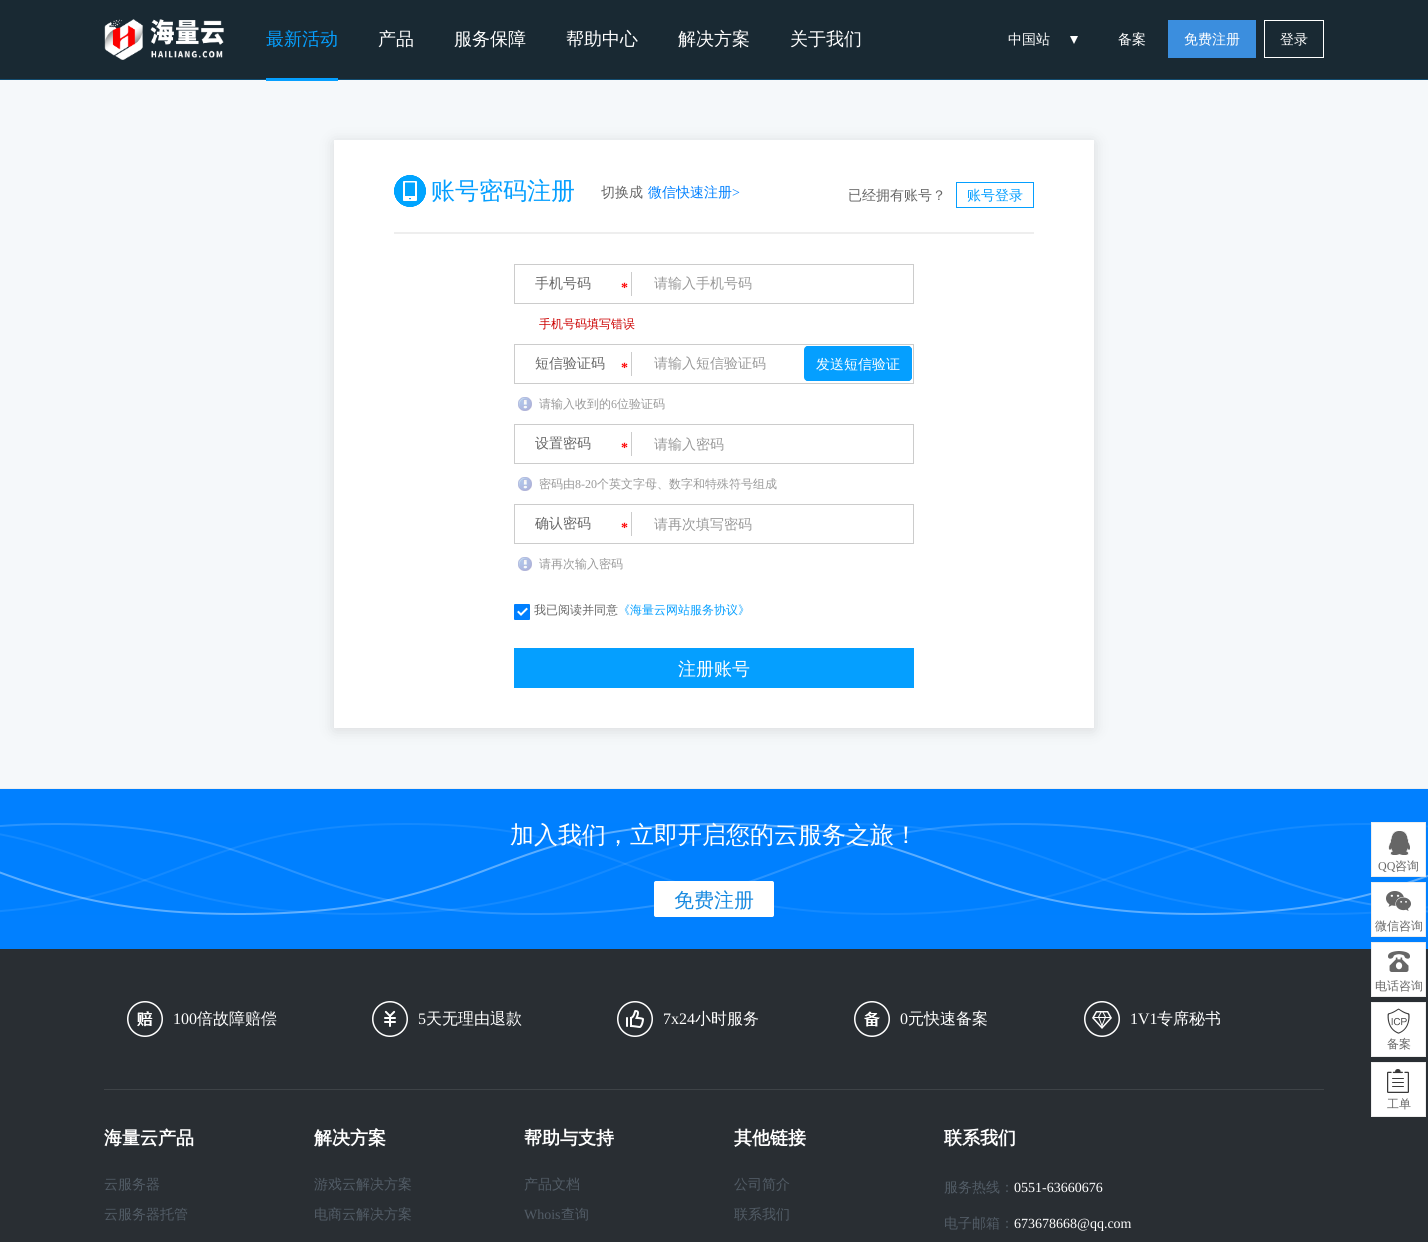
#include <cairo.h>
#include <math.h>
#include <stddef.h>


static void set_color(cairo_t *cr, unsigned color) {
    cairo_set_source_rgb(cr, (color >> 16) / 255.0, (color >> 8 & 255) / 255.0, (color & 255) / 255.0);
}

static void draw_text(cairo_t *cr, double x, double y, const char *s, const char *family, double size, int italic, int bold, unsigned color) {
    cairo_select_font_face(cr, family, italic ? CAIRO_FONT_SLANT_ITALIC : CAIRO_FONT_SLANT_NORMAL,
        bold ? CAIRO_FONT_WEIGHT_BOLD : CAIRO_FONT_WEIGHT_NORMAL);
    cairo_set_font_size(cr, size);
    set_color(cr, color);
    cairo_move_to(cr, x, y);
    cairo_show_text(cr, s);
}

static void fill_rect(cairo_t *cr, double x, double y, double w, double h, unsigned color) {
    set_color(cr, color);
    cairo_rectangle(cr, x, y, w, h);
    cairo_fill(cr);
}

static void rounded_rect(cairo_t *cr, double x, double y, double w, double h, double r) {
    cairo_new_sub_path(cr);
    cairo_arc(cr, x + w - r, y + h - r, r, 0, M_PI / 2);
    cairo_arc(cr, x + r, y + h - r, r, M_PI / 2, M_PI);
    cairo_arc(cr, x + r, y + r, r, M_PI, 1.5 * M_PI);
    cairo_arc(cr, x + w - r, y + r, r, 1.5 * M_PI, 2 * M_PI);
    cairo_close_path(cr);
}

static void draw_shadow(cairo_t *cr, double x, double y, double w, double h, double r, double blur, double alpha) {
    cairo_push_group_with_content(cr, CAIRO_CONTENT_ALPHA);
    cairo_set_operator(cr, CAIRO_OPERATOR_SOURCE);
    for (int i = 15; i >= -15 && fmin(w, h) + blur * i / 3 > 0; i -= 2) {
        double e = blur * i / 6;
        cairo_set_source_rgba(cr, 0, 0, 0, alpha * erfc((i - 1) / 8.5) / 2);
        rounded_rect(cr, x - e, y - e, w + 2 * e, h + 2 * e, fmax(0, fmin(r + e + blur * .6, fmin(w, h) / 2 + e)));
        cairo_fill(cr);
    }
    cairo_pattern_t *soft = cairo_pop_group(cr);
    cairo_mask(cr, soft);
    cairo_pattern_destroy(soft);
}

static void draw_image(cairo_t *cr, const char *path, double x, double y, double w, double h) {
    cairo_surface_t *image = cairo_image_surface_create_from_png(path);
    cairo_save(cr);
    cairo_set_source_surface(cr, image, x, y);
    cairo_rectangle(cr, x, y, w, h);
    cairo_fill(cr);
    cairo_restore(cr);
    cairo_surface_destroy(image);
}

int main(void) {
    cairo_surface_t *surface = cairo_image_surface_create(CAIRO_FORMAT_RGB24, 1428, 1242);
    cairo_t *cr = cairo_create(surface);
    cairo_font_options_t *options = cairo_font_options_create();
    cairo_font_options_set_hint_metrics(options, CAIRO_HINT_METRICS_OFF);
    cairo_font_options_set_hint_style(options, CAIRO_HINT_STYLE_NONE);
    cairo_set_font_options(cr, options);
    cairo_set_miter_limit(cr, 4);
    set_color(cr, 0xF5F8FA);
    cairo_paint(cr);
    fill_rect(cr, 0, 0, 1428, 79, 0x192933);
    fill_rect(cr, 0, 79, 1428, 1, 0x134C70);
    draw_image(cr, "assets/img1.png", 104, 19, 120, 41);
    draw_text(cr, 266, 45, "最新活动", "WenQuanYi Zen Hei Medium", 18, 0, 0, 0x059FFF);
    fill_rect(cr, 266, 78, 72, 3, 0x059FFF);
    draw_text(cr, 378, 45, "产品", "WenQuanYi Zen Hei Medium", 18, 0, 0, 0xFFFFFF);
    draw_text(cr, 454, 45, "服务保障", "WenQuanYi Zen Hei Medium", 18, 0, 0, 0xFFFFFF);
    draw_text(cr, 566, 45, "帮助中心", "WenQuanYi Zen Hei Medium", 18, 0, 0, 0xFFFFFF);
    draw_text(cr, 678, 45, "解决方案", "WenQuanYi Zen Hei Medium", 18, 0, 0, 0xFFFFFF);
    draw_text(cr, 790, 45, "关于我们", "WenQuanYi Zen Hei Medium", 18, 0, 0, 0xFFFFFF);
    draw_text(cr, 1008, 44, "中国站", "WenQuanYi Zen Hei Medium", 14, 0, 0, 0xFFFFFF);
    cairo_new_path(cr);
    cairo_move_to(cr, 1070, 36);
    cairo_line_to(cr, 1078, 36);
    cairo_line_to(cr, 1074, 44);
    cairo_close_path(cr);
    cairo_fill(cr);
    draw_text(cr, 1118, 44, "备案", "WenQuanYi Zen Hei Medium", 14, 0, 0, 0xFFFFFF);
    fill_rect(cr, 1168, 20, 88, 38, 0x3B8EDE);
    draw_text(cr, 1184, 44, "免费注册", "WenQuanYi Zen Hei Medium", 14, 0, 0, 0xFFFFFF);
    cairo_rectangle(cr, 1264.5, 20.5, 59, 37);
    cairo_set_line_width(cr, 1);
    cairo_stroke(cr);
    draw_text(cr, 1280, 44, "登录", "WenQuanYi Zen Hei Medium", 14, 0, 0, 0xFFFFFF);
    fill_rect(cr, 0, 788, 1428, 1, 0xEEEEEE);
    set_color(cr, 0x000000);
    draw_shadow(cr, 334, 142, 760, 588, 0, 8, 0.12);
    fill_rect(cr, 334, 140, 760, 588, 0xFFFFFF);
    draw_image(cr, "assets/img2.png", 394, 175, 32, 32);
    draw_text(cr, 431, 199, "账号密码注册", "WenQuanYi Zen Hei Medium", 24, 0, 0, 0x059FFF);
    draw_text(cr, 601, 197, "切换成", "WenQuanYi Zen Hei Medium", 14, 0, 0, 0x666666);
    draw_text(cr, 648, 197, "微信快速注册", "WenQuanYi Zen Hei Medium", 14, 0, 0, 0x0080FF);
    draw_text(cr, 732, 197, ">", "Liberation Serif", 14, 0, 0, 0x0080FF);
    draw_text(cr, 848, 200, "已经拥有账号？", "WenQuanYi Zen Hei Medium", 14, 0, 0, 0x666666);
    cairo_rectangle(cr, 956.5, 182.5, 77, 25);
    set_color(cr, 0x059FFF);
    cairo_stroke(cr);
    draw_text(cr, 967, 200, "账号登录", "WenQuanYi Zen Hei Medium", 14, 0, 0, 0x059FFF);
    fill_rect(cr, 394, 232, 640, 2, 0xEEEEEE);
    cairo_rectangle(cr, 514.5, 264.5, 399, 39);
    set_color(cr, 0xCCCCCC);
    cairo_stroke(cr);
    draw_text(cr, 535, 288, "手机号码", "WenQuanYi Zen Hei Medium", 14, 0, 0, 0x666666);
    fill_rect(cr, 631, 272, 1, 24, 0xCCCCCC);
    draw_text(cr, 621, 292, "*", "Liberation Serif", 14, 0, 1, 0xFF0000);
    draw_text(cr, 654, 288, "请输入手机号码", "WenQuanYi Zen Hei Medium", 14, 0, 0, 0x999999);
    draw_text(cr, 539, 328, "手机号码填写错误", "WenQuanYi Zen Hei Medium", 12, 0, 0, 0xCC0000);
    cairo_rectangle(cr, 514.5, 344.5, 399, 39);
    set_color(cr, 0xCCCCCC);
    cairo_stroke(cr);
    draw_text(cr, 535, 368, "短信验证码", "WenQuanYi Zen Hei Medium", 14, 0, 0, 0x666666);
    fill_rect(cr, 631, 352, 1, 24, 0xCCCCCC);
    draw_text(cr, 621, 372, "*", "Liberation Serif", 14, 0, 1, 0xFF0000);
    draw_text(cr, 654, 368, "请输入短信验证码", "WenQuanYi Zen Hei Medium", 14, 0, 0, 0x999999);
    set_color(cr, 0x059FFF);
    rounded_rect(cr, 804, 346, 108, 35, 4);
    cairo_fill(cr);
    cairo_set_fill_rule(cr, CAIRO_FILL_RULE_EVEN_ODD);
    cairo_new_path(cr);
    cairo_move_to(cr, 808, 346);
    cairo_line_to(cr, 908, 346);
    cairo_curve_to(cr, 910, 346, 912, 348, 912, 350);
    cairo_line_to(cr, 912, 377);
    cairo_curve_to(cr, 912, 379, 910, 381, 908, 381);
    cairo_line_to(cr, 808, 381);
    cairo_curve_to(cr, 806, 381, 804, 379, 804, 377);
    cairo_line_to(cr, 804, 350);
    cairo_curve_to(cr, 804, 348, 806, 346, 808, 346);
    cairo_close_path(cr);
    cairo_move_to(cr, 808, 347);
    cairo_line_to(cr, 908, 347);
    cairo_curve_to(cr, 910, 347, 911, 348, 911, 350);
    cairo_line_to(cr, 911, 377);
    cairo_curve_to(cr, 911, 379, 910, 380, 908, 380);
    cairo_line_to(cr, 808, 380);
    cairo_curve_to(cr, 806, 380, 804, 379, 804, 377);
    cairo_line_to(cr, 804, 350);
    cairo_curve_to(cr, 804, 348, 806, 347, 808, 347);
    cairo_close_path(cr);
    cairo_fill(cr);
    draw_text(cr, 816, 369, "发送短信验证", "WenQuanYi Zen Hei Medium", 14, 0, 0, 0xFFFFFF);
    draw_image(cr, "assets/img3.png", 518, 397, 14, 14);
    draw_text(cr, 539, 408, "请输入收到的", "WenQuanYi Zen Hei Medium", 12, 0, 0, 0x999999);
    draw_text(cr, 611, 408, "6", "Liberation Serif", 12, 0, 0, 0x999999);
    draw_text(cr, 617, 408, "位验证码", "WenQuanYi Zen Hei Medium", 12, 0, 0, 0x999999);
    cairo_rectangle(cr, 514.5, 424.5, 399, 39);
    set_color(cr, 0xCCCCCC);
    cairo_stroke(cr);
    draw_text(cr, 535, 448, "设置密码", "WenQuanYi Zen Hei Medium", 14, 0, 0, 0x666666);
    fill_rect(cr, 631, 432, 1, 24, 0xCCCCCC);
    draw_text(cr, 621, 452, "*", "Liberation Serif", 14, 0, 1, 0xFF0000);
    draw_text(cr, 654, 449, "请输入密码", "WenQuanYi Zen Hei Medium", 14, 0, 0, 0x999999);
    draw_image(cr, "assets/img3.png", 518, 477, 14, 14);
    draw_text(cr, 539, 488, "密码由", "WenQuanYi Zen Hei Medium", 12, 0, 0, 0x999999);
    draw_text(cr, 575, 488, "8-20", "Liberation Serif", 12, 0, 0, 0x999999);
    draw_text(cr, 597, 488, "个英文字母、数字和特殊符号组成", "WenQuanYi Zen Hei Medium", 12, 0, 0, 0x999999);
    cairo_rectangle(cr, 514.5, 504.5, 399, 39);
    set_color(cr, 0xCCCCCC);
    cairo_stroke(cr);
    draw_text(cr, 535, 528, "确认密码", "WenQuanYi Zen Hei Medium", 14, 0, 0, 0x666666);
    fill_rect(cr, 631, 512, 1, 24, 0xCCCCCC);
    draw_text(cr, 621, 532, "*", "Liberation Serif", 14, 0, 1, 0xFF0000);
    draw_text(cr, 654, 529, "请再次填写密码", "WenQuanYi Zen Hei Medium", 14, 0, 0, 0x999999);
    draw_image(cr, "assets/img3.png", 518, 557, 14, 14);
    draw_text(cr, 539, 568, "请再次输入密码", "WenQuanYi Zen Hei Medium", 12, 0, 0, 0x999999);
    draw_image(cr, "assets/img4.png", 514, 604, 16, 16);
    draw_text(cr, 534, 614, "我已阅读并同意", "WenQuanYi Zen Hei Medium", 12, 0, 0, 0x666666);
    draw_text(cr, 618, 614, "《海量云网站服务协议》", "WenQuanYi Zen Hei Medium", 12, 0, 0, 0x059FFF);
    fill_rect(cr, 514, 648, 400, 40, 0x059FFF);
    draw_text(cr, 678, 675, "注册账号", "WenQuanYi Zen Hei Medium", 18, 0, 0, 0xFFFFFF);
    fill_rect(cr, 0, 789, 1428, 160, 0x0180FF);
    draw_image(cr, "assets/img5.png", 0, 823, 1428, 92);
    draw_text(cr, 510, 843, "加入我们，立即开启您的云服务之旅！", "WenQuanYi Zen Hei Medium", 24, 0, 0, 0xFFFFFF);
    rounded_rect(cr, 654.5, 881.5, 119, 35, 1.5);
    cairo_fill_preserve(cr);
    cairo_stroke(cr);
    draw_text(cr, 674, 907, "免费注册", "WenQuanYi Zen Hei Medium", 20, 0, 0, 0x188AE0);
    fill_rect(cr, 1372, 823, 53, 53, 0xFFFFFF);
    draw_image(cr, "assets/img6.png", 1388, 831, 22, 24);
    cairo_rectangle(cr, 1371.5, 822.5, 54, 54);
    set_color(cr, 0xEEEEEE);
    cairo_stroke(cr);
    draw_text(cr, 1378, 870, "QQ", "Liberation Serif", 12, 0, 0, 0x666666);
    draw_text(cr, 1395, 870, "咨询", "WenQuanYi Zen Hei Medium", 12, 0, 0, 0x666666);
    fill_rect(cr, 1372, 883, 53, 53, 0xFFFFFF);
    draw_image(cr, "assets/img7.png", 1386, 891, 25, 20);
    cairo_rectangle(cr, 1371.5, 882.5, 54, 54);
    set_color(cr, 0xEEEEEE);
    cairo_stroke(cr);
    draw_text(cr, 1375, 930, "微信咨询", "WenQuanYi Zen Hei Medium", 12, 0, 0, 0x666666);
    fill_rect(cr, 0, 949, 1428, 293, 0x292E33);
    fill_rect(cr, 1372, 943, 53, 53, 0xFFFFFF);
    draw_image(cr, "assets/img8.png", 1388, 951, 22, 21);
    cairo_rectangle(cr, 1371.5, 942.5, 54, 54);
    set_color(cr, 0xEEEEEE);
    cairo_stroke(cr);
    draw_text(cr, 1375, 990, "电话咨询", "WenQuanYi Zen Hei Medium", 12, 0, 0, 0x666666);
    set_color(cr, 0xFFFFFF);
    cairo_rectangle(cr, 1371.5, 1002.5, 54, 54);
    cairo_fill_preserve(cr);
    set_color(cr, 0xEEEEEE);
    cairo_stroke(cr);
    draw_image(cr, "assets/img9.png", 1387, 1008, 23, 26);
    draw_text(cr, 1387, 1048, "备案", "WenQuanYi Zen Hei Medium", 12, 0, 0, 0x666666);
    set_color(cr, 0xFFFFFF);
    cairo_rectangle(cr, 1371.5, 1062.5, 54, 54);
    cairo_fill_preserve(cr);
    set_color(cr, 0xEEEEEE);
    cairo_stroke(cr);
    draw_image(cr, "assets/img10.png", 1387, 1069, 22, 24);
    draw_text(cr, 1387, 1108, "工单", "WenQuanYi Zen Hei Medium", 12, 0, 0, 0x666666);
    fill_rect(cr, 104, 1089, 1220, 1, 0x3E4347);
    draw_image(cr, "assets/img11.png", 127, 1001, 36, 36);
    draw_text(cr, 173, 1024, "100", "Liberation Serif", 16, 0, 0, 0xFFFFFF);
    draw_text(cr, 197, 1024, "倍故障赔偿", "WenQuanYi Zen Hei Medium", 16, 0, 0, 0xFFFFFF);
    draw_image(cr, "assets/img12.png", 372, 1001, 36, 36);
    draw_text(cr, 418, 1024, "5", "Liberation Serif", 16, 0, 0, 0xFFFFFF);
    draw_text(cr, 426, 1024, "天无理由退款", "WenQuanYi Zen Hei Medium", 16, 0, 0, 0xFFFFFF);
    draw_image(cr, "assets/img13.png", 617, 1001, 36, 36);
    draw_text(cr, 663, 1024, "7x24", "Liberation Serif", 16, 0, 0, 0xFFFFFF);
    draw_text(cr, 695, 1024, "小时服务", "WenQuanYi Zen Hei Medium", 16, 0, 0, 0xFFFFFF);
    draw_image(cr, "assets/img14.png", 854, 1001, 36, 36);
    draw_text(cr, 900, 1024, "0", "Liberation Serif", 16, 0, 0, 0xFFFFFF);
    draw_text(cr, 908, 1024, "元快速备案", "WenQuanYi Zen Hei Medium", 16, 0, 0, 0xFFFFFF);
    draw_image(cr, "assets/img15.png", 1084, 1001, 36, 36);
    draw_text(cr, 1130, 1024, "1V1", "Liberation Serif", 16, 0, 0, 0xFFFFFF);
    draw_text(cr, 1157, 1024, "专席秘书", "WenQuanYi Zen Hei Medium", 16, 0, 0, 0xFFFFFF);
    draw_text(cr, 104, 1144, "海量云产品", "WenQuanYi Zen Hei", 18, 0, 1, 0xFFFFFF);
    draw_text(cr, 104, 1189, "云服务器", "WenQuanYi Zen Hei Medium", 14, 0, 0, 0x525C66);
    draw_text(cr, 104, 1219, "云服务器托管", "WenQuanYi Zen Hei Medium", 14, 0, 0, 0x525C66);
    draw_text(cr, 314, 1144, "解决方案", "WenQuanYi Zen Hei", 18, 0, 1, 0xFFFFFF);
    draw_text(cr, 314, 1189, "游戏云解决方案", "WenQuanYi Zen Hei Medium", 14, 0, 0, 0x525C66);
    draw_text(cr, 314, 1219, "电商云解决方案", "WenQuanYi Zen Hei Medium", 14, 0, 0, 0x525C66);
    draw_text(cr, 524, 1144, "帮助与支持", "WenQuanYi Zen Hei", 18, 0, 1, 0xFFFFFF);
    draw_text(cr, 524, 1189, "产品文档", "WenQuanYi Zen Hei Medium", 14, 0, 0, 0x525C66);
    draw_text(cr, 524, 1219, "Whois", "Liberation Serif", 14, 0, 0, 0x525C66);
    draw_text(cr, 561, 1219, "查询", "WenQuanYi Zen Hei Medium", 14, 0, 0, 0x525C66);
    draw_text(cr, 734, 1144, "其他链接", "WenQuanYi Zen Hei", 18, 0, 1, 0xFFFFFF);
    draw_text(cr, 734, 1189, "公司简介", "WenQuanYi Zen Hei Medium", 14, 0, 0, 0x525C66);
    draw_text(cr, 734, 1219, "联系我们", "WenQuanYi Zen Hei Medium", 14, 0, 0, 0x525C66);
    draw_text(cr, 944, 1144, "联系我们", "WenQuanYi Zen Hei", 18, 0, 1, 0xFFFFFF);
    draw_text(cr, 944, 1192, "服务热线：", "WenQuanYi Zen Hei Medium", 14, 0, 0, 0x525C66);
    draw_text(cr, 1014, 1192, "0551-63660676", "Liberation Serif", 14, 0, 0, 0xFFFFFF);
    draw_text(cr, 944, 1228, "电子邮箱：", "WenQuanYi Zen Hei Medium", 14, 0, 0, 0x525C66);
    draw_text(cr, 1014, 1228, "673678668@qq.com", "Liberation Serif", 14, 0, 0, 0xFFFFFF);
    cairo_surface_write_to_png(surface, "output.png");
    cairo_font_options_destroy(options);
    cairo_destroy(cr);
    cairo_surface_destroy(surface);
    return 0;
}
